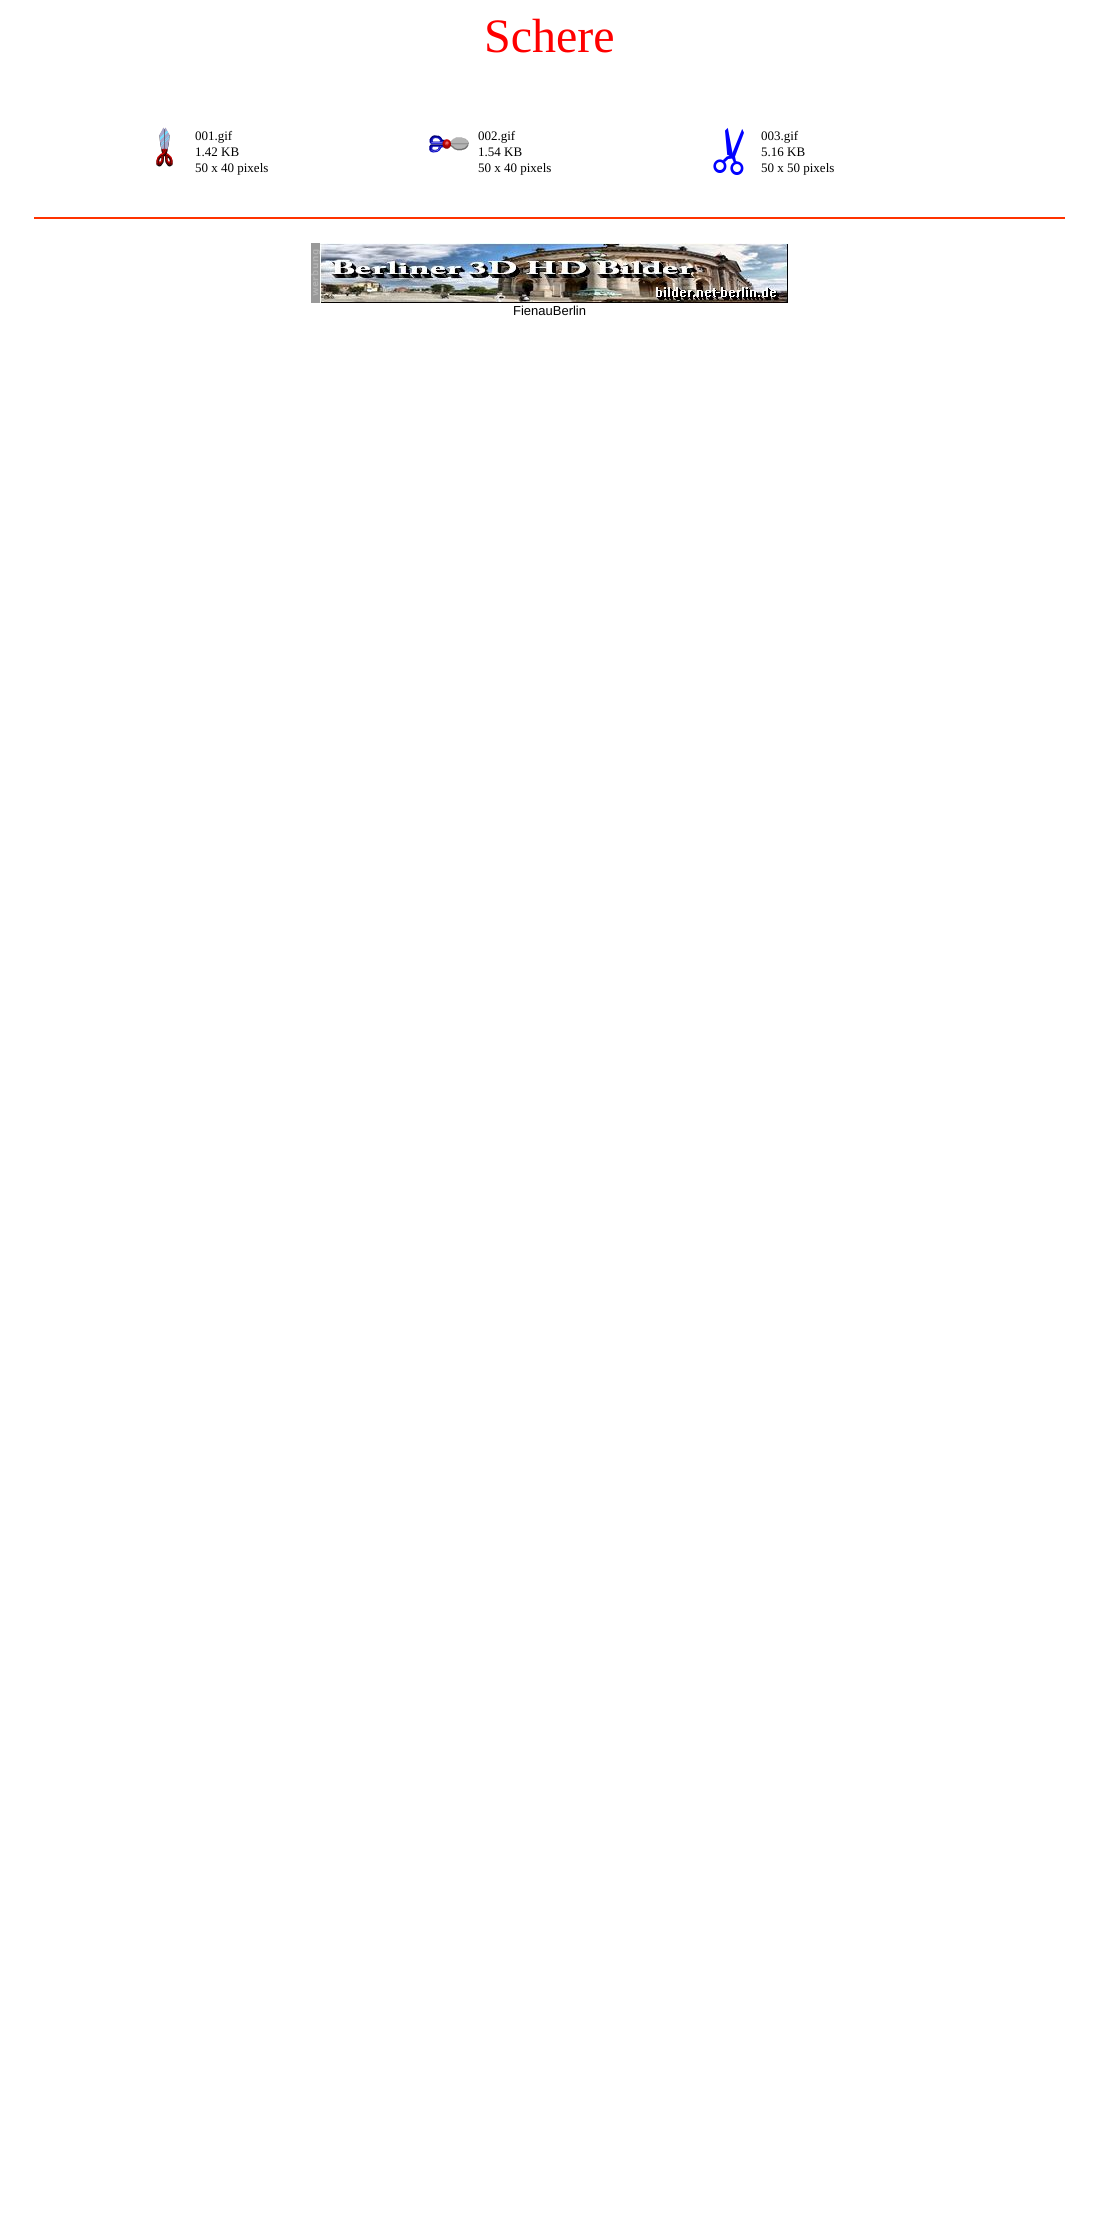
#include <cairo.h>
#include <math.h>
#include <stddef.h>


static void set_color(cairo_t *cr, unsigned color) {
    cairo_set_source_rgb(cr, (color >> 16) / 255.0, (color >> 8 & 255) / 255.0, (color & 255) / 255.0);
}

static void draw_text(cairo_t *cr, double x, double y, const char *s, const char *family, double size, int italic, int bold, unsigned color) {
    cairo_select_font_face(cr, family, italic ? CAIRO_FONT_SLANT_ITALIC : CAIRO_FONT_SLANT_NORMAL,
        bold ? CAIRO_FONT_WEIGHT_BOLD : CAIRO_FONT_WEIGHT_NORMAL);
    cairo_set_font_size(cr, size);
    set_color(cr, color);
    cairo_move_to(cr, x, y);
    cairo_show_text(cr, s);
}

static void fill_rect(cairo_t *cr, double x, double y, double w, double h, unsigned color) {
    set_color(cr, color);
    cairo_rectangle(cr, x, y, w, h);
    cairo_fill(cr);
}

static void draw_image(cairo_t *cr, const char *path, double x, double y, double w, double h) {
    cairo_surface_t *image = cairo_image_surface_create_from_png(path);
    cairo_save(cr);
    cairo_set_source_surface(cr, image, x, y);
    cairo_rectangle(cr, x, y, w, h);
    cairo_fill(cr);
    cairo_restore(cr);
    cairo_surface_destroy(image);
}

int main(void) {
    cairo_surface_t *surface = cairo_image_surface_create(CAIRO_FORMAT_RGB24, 1099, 2240);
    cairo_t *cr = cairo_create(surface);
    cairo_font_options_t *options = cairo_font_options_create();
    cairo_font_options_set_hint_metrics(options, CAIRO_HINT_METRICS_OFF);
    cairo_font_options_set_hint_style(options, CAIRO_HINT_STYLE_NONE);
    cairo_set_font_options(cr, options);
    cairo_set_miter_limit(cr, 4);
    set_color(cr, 0xFFFFFF);
    cairo_paint(cr);
    draw_text(cr, 484, 52, "Schere", "Liberation Serif", 48, 0, 0, 0xFF0000);
    draw_image(cr, "assets/img1.png", 156, 127, 17, 40);
    draw_text(cr, 195, 140, "001.gif", "Liberation Serif", 13, 0, 0, 0x000000);
    draw_text(cr, 195, 156, "1.42 KB", "Liberation Serif", 13, 0, 0, 0x000000);
    draw_text(cr, 195, 172, "50 x 40 pixels", "Liberation Serif", 13, 0, 0, 0x000000);
    draw_image(cr, "assets/img2.png", 429, 135, 40, 18);
    draw_text(cr, 478, 140, "002.gif", "Liberation Serif", 13, 0, 0, 0x000000);
    draw_text(cr, 478, 156, "1.54 KB", "Liberation Serif", 13, 0, 0, 0x000000);
    draw_text(cr, 478, 172, "50 x 40 pixels", "Liberation Serif", 13, 0, 0, 0x000000);
    draw_image(cr, "assets/img3.png", 713, 127, 31, 48);
    draw_text(cr, 761, 140, "003.gif", "Liberation Serif", 13, 0, 0, 0x000000);
    draw_text(cr, 761, 156, "5.16 KB", "Liberation Serif", 13, 0, 0, 0x000000);
    draw_text(cr, 761, 172, "50 x 50 pixels", "Liberation Serif", 13, 0, 0, 0x000000);
    fill_rect(cr, 34, 217, 1031, 2, 0xFF3300);
    draw_image(cr, "assets/img4.png", 311, 243, 477, 60);
    draw_text(cr, 513, 315, "FienauBerlin", "Liberation Sans", 13, 0, 0, 0x000000);
    cairo_surface_write_to_png(surface, "output.png");
    cairo_font_options_destroy(options);
    cairo_destroy(cr);
    cairo_surface_destroy(surface);
    return 0;
}
